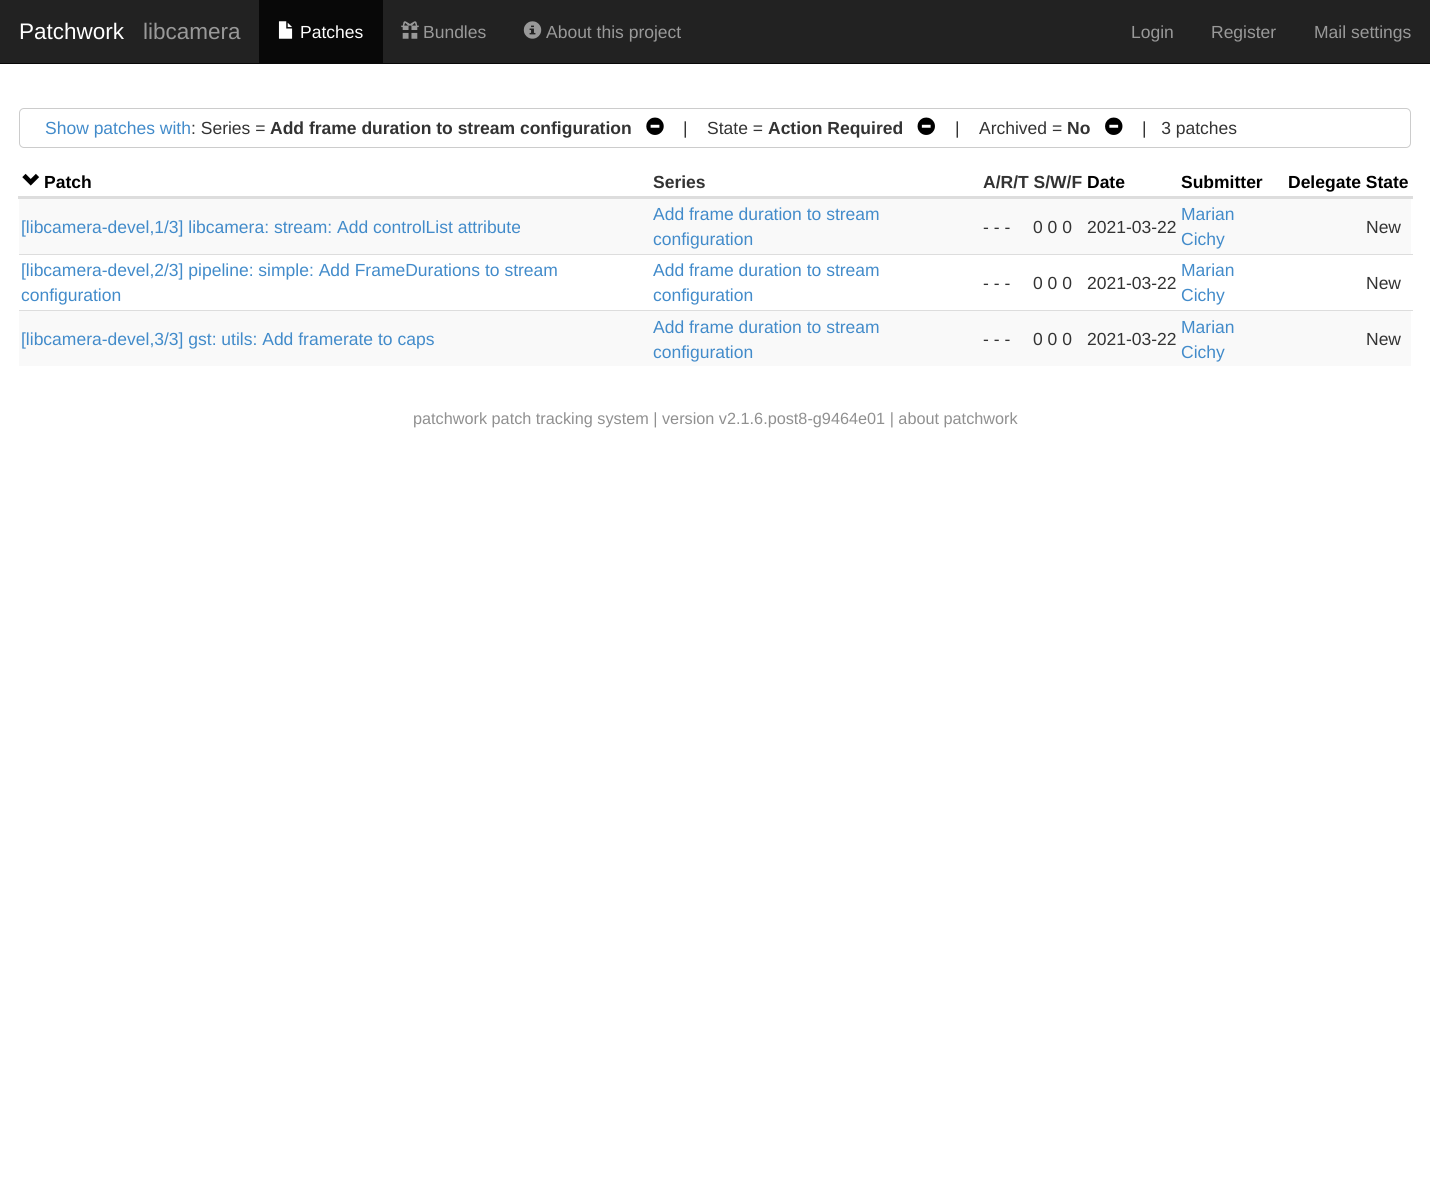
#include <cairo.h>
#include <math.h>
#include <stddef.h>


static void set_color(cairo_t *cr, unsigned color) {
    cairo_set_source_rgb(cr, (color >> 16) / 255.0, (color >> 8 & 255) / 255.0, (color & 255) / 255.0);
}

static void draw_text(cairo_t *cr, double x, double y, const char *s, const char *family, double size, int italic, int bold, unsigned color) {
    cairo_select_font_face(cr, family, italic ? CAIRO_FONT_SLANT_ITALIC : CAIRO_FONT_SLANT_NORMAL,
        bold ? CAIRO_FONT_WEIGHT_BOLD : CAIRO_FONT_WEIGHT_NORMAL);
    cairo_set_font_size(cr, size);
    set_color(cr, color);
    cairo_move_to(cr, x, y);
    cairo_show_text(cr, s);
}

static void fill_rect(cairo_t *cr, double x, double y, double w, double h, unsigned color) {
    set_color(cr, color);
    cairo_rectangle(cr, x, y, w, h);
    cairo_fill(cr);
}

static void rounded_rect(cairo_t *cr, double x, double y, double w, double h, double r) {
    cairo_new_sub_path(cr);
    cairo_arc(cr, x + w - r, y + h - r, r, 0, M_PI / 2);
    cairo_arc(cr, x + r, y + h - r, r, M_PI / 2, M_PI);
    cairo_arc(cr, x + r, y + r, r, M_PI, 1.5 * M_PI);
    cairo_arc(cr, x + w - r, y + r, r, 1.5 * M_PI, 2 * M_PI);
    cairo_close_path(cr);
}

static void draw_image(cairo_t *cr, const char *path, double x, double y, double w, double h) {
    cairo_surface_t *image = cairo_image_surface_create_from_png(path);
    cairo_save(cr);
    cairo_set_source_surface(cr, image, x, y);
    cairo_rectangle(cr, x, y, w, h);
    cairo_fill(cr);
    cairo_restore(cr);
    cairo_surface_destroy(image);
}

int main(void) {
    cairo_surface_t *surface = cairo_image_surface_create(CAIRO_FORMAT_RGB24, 1430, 1188);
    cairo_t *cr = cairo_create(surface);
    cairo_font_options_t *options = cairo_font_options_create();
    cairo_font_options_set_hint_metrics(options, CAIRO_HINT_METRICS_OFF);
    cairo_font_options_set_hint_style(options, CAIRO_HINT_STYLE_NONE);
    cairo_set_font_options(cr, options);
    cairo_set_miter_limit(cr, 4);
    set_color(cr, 0xFFFFFF);
    cairo_paint(cr);
    fill_rect(cr, 0, 0, 1430, 63, 0x222222);
    fill_rect(cr, 0, 63, 1430, 1, 0x080808);
    draw_text(cr, 19, 39, "Patchwork", "Liberation Sans", 22.5, 0, 0, 0xFFFFFF);
    draw_text(cr, 143, 39, "libcamera", "Liberation Sans", 22.5, 0, 0, 0x999999);
    fill_rect(cr, 259, 0, 124, 63, 0x080808);
    draw_image(cr, "assets/img1.png", 278, 21, 15, 18);
    draw_text(cr, 300, 38, "Patches", "Liberation Sans", 17.5, 0, 0, 0xFFFFFF);
    draw_image(cr, "assets/img2.png", 401, 21, 18, 18);
    draw_text(cr, 423, 38, "Bundles", "Liberation Sans", 17.5, 0, 0, 0x999999);
    draw_image(cr, "assets/img3.png", 523, 21, 19, 18);
    draw_text(cr, 546, 38, "About this project", "Liberation Sans", 17.5, 0, 0, 0x999999);
    draw_text(cr, 1131, 38, "Login", "Liberation Sans", 17.5, 0, 0, 0x999999);
    draw_text(cr, 1211, 38, "Register", "Liberation Sans", 17.5, 0, 0, 0x999999);
    draw_text(cr, 1314, 38, "Mail settings", "Liberation Sans", 17.5, 0, 0, 0x999999);
    rounded_rect(cr, 19.5, 108.5, 1391, 39, 4.5);
    set_color(cr, 0xCCCCCC);
    cairo_set_line_width(cr, 1);
    cairo_stroke(cr);
    draw_text(cr, 45, 134, "Show patches with", "Liberation Sans", 17.5, 0, 0, 0x428BCA);
    draw_text(cr, 191, 134, ": Series =", "Liberation Sans", 17.5, 0, 0, 0x333333);
    draw_text(cr, 270, 134, "Add frame duration to stream configuration", "Liberation Sans", 17.5, 0, 1, 0x333333);
    draw_image(cr, "assets/img4.png", 646, 117, 18, 18);
    draw_text(cr, 683, 134, "|", "Liberation Sans", 17.5, 0, 0, 0x333333);
    draw_text(cr, 707, 134, "State =", "Liberation Sans", 17.5, 0, 0, 0x333333);
    draw_text(cr, 768, 134, "Action Required", "Liberation Sans", 17.5, 0, 1, 0x333333);
    draw_image(cr, "assets/img5.png", 917, 117, 18, 18);
    draw_text(cr, 955, 134, "|", "Liberation Sans", 17.5, 0, 0, 0x333333);
    draw_text(cr, 979, 134, "Archived =", "Liberation Sans", 17.5, 0, 0, 0x333333);
    draw_text(cr, 1067, 134, "No", "Liberation Sans", 17.5, 0, 1, 0x333333);
    draw_image(cr, "assets/img6.png", 1105, 117, 18, 18);
    draw_text(cr, 1142, 134, "|   3 patches", "Liberation Sans", 17.5, 0, 0, 0x333333);
    draw_image(cr, "assets/img7.png", 22, 173, 18, 13);
    draw_text(cr, 44, 188, "Patch", "Liberation Sans", 17.5, 0, 1, 0x000000);
    draw_text(cr, 653, 188, "Series", "Liberation Sans", 17.5, 0, 1, 0x333333);
    draw_text(cr, 983, 188, "A/R/T S/W/F", "Liberation Sans", 17.5, 0, 1, 0x333333);
    draw_text(cr, 1087, 188, "Date", "Liberation Sans", 17.5, 0, 1, 0x000000);
    draw_text(cr, 1181, 188, "Submitter", "Liberation Sans", 17.5, 0, 1, 0x000000);
    draw_text(cr, 1288, 188, "Delegate State", "Liberation Sans", 17.5, 0, 1, 0x000000);
    fill_rect(cr, 18, 196, 1395, 3, 0xDDDDDD);
    fill_rect(cr, 19, 199, 1392, 55, 0xF9F9F9);
    draw_text(cr, 21, 233, "[libcamera-devel,1/3] libcamera: stream: Add controlList attribute", "Liberation Sans", 17.5, 0, 0, 0x428BCA);
    draw_text(cr, 653, 220, "Add frame duration to stream", "Liberation Sans", 17.5, 0, 0, 0x428BCA);
    draw_text(cr, 653, 245, "configuration", "Liberation Sans", 17.5, 0, 0, 0x428BCA);
    draw_text(cr, 983, 233, "- - -", "Liberation Sans", 17.5, 0, 0, 0x333333);
    draw_text(cr, 1033, 233, "0 0 0", "Liberation Sans", 17.5, 0, 0, 0x333333);
    draw_text(cr, 1087, 233, "2021-03-22", "Liberation Sans", 17.5, 0, 0, 0x333333);
    draw_text(cr, 1181, 220, "Marian", "Liberation Sans", 17.5, 0, 0, 0x428BCA);
    draw_text(cr, 1181, 245, "Cichy", "Liberation Sans", 17.5, 0, 0, 0x428BCA);
    draw_text(cr, 1366, 233, "New", "Liberation Sans", 17.5, 0, 0, 0x333333);
    draw_text(cr, 21, 276, "[libcamera-devel,2/3] pipeline: simple: Add FrameDurations to stream", "Liberation Sans", 17.5, 0, 0, 0x428BCA);
    draw_text(cr, 21, 301, "configuration", "Liberation Sans", 17.5, 0, 0, 0x428BCA);
    draw_text(cr, 653, 276, "Add frame duration to stream", "Liberation Sans", 17.5, 0, 0, 0x428BCA);
    draw_text(cr, 653, 301, "configuration", "Liberation Sans", 17.5, 0, 0, 0x428BCA);
    draw_text(cr, 983, 289, "- - -", "Liberation Sans", 17.5, 0, 0, 0x333333);
    draw_text(cr, 1033, 289, "0 0 0", "Liberation Sans", 17.5, 0, 0, 0x333333);
    draw_text(cr, 1087, 289, "2021-03-22", "Liberation Sans", 17.5, 0, 0, 0x333333);
    draw_text(cr, 1181, 276, "Marian", "Liberation Sans", 17.5, 0, 0, 0x428BCA);
    draw_text(cr, 1181, 301, "Cichy", "Liberation Sans", 17.5, 0, 0, 0x428BCA);
    fill_rect(cr, 19, 254, 1394, 1, 0xDDDDDD);
    draw_text(cr, 1366, 289, "New", "Liberation Sans", 17.5, 0, 0, 0x333333);
    fill_rect(cr, 19, 311, 1392, 55, 0xF9F9F9);
    draw_text(cr, 21, 345, "[libcamera-devel,3/3] gst: utils: Add framerate to caps", "Liberation Sans", 17.5, 0, 0, 0x428BCA);
    draw_text(cr, 653, 333, "Add frame duration to stream", "Liberation Sans", 17.5, 0, 0, 0x428BCA);
    draw_text(cr, 653, 358, "configuration", "Liberation Sans", 17.5, 0, 0, 0x428BCA);
    draw_text(cr, 983, 345, "- - -", "Liberation Sans", 17.5, 0, 0, 0x333333);
    draw_text(cr, 1033, 345, "0 0 0", "Liberation Sans", 17.5, 0, 0, 0x333333);
    draw_text(cr, 1087, 345, "2021-03-22", "Liberation Sans", 17.5, 0, 0, 0x333333);
    draw_text(cr, 1181, 333, "Marian", "Liberation Sans", 17.5, 0, 0, 0x428BCA);
    draw_text(cr, 1181, 358, "Cichy", "Liberation Sans", 17.5, 0, 0, 0x428BCA);
    fill_rect(cr, 19, 310, 1394, 1, 0xDDDDDD);
    draw_text(cr, 1366, 345, "New", "Liberation Sans", 17.5, 0, 0, 0x333333);
    draw_text(cr, 413, 424, "patchwork patch tracking system | version v2.1.6.post8-g9464e01 | about patchwork", "Liberation Sans", 16.25, 0, 0, 0x909090);
    cairo_surface_write_to_png(surface, "output.png");
    cairo_font_options_destroy(options);
    cairo_destroy(cr);
    cairo_surface_destroy(surface);
    return 0;
}
